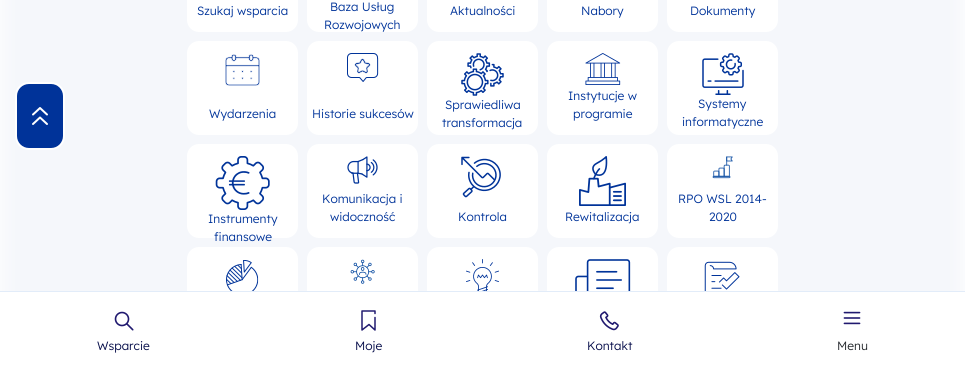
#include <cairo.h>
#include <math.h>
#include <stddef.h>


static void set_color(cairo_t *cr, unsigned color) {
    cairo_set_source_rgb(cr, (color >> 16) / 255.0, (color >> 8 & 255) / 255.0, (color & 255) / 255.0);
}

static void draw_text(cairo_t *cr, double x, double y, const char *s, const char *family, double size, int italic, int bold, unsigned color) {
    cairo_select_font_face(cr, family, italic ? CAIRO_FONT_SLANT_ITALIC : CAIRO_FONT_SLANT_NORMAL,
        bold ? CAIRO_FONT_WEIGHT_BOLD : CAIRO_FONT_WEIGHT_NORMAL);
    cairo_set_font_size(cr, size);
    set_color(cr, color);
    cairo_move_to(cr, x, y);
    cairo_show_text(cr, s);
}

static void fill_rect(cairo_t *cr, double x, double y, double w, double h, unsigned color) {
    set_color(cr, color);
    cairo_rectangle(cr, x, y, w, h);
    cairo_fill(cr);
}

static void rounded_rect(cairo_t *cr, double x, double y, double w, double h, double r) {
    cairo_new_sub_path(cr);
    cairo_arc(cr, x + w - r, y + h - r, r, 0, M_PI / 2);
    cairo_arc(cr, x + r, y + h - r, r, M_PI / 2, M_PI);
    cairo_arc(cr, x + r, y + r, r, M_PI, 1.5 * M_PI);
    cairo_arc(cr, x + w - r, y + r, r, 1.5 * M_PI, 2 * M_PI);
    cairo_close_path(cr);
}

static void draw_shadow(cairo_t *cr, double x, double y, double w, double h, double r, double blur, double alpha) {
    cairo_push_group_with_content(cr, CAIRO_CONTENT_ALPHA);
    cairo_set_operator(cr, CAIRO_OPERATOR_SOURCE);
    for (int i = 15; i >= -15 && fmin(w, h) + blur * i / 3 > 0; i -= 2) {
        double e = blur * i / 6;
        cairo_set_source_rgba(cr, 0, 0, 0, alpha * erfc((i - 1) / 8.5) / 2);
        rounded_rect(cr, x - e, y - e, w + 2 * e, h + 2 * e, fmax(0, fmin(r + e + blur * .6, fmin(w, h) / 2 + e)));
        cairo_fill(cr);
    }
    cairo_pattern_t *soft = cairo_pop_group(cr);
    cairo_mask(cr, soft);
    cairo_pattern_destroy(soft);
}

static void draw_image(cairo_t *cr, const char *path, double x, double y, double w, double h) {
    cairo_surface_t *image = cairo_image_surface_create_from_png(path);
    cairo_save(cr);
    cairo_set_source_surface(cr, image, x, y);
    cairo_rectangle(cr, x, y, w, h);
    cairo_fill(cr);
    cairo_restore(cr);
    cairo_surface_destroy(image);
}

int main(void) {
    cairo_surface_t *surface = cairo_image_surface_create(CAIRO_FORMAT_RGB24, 965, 365);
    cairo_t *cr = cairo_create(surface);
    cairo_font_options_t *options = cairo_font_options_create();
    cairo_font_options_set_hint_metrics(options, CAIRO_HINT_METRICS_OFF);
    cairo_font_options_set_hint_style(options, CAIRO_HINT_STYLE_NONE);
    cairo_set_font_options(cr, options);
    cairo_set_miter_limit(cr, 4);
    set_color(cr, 0xFFFFFF);
    cairo_paint(cr);
    set_color(cr, 0xF5F7FB);
    draw_shadow(cr, 0, -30, 965, 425, 0, 10, 1);
    set_color(cr, 0x003399);
    rounded_rect(cr, 16, 83, 48, 66, 13);
    cairo_fill_preserve(cr);
    set_color(cr, 0xFFFFFF);
    cairo_stroke(cr);
    cairo_new_path(cr);
    cairo_move_to(cr, 47, 114.5);
    cairo_line_to(cr, 40, 108);
    cairo_line_to(cr, 33, 114.5);
    cairo_move_to(cr, 47, 124);
    cairo_line_to(cr, 40, 117.5);
    cairo_line_to(cr, 33, 124);
    cairo_set_line_cap(cr, CAIRO_LINE_CAP_ROUND);
    cairo_set_line_join(cr, CAIRO_LINE_JOIN_ROUND);
    cairo_stroke(cr);
    rounded_rect(cr, 187, -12, 111, 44, 12);
    cairo_fill(cr);
    draw_text(cr, 197, 15, "Szukaj wsparcia", "Lexend Light", 12, 0, 0, 0x003399);
    set_color(cr, 0xFFFFFF);
    rounded_rect(cr, 307, -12, 111, 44, 12);
    cairo_fill(cr);
    draw_text(cr, 330, 11, "Baza Usług", "Lexend Light", 12, 0, 0, 0x003399);
    draw_text(cr, 324, 29, "Rozwojowych", "Lexend Light", 12, 0, 0, 0x003399);
    set_color(cr, 0xFFFFFF);
    rounded_rect(cr, 427, -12, 111, 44, 12);
    cairo_fill(cr);
    draw_text(cr, 450, 15, "Aktualności", "Lexend Light", 12, 0, 0, 0x003399);
    set_color(cr, 0xFFFFFF);
    rounded_rect(cr, 547, -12, 111, 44, 12);
    cairo_fill(cr);
    draw_text(cr, 581, 15, "Nabory", "Lexend Light", 12, 0, 0, 0x003399);
    set_color(cr, 0xFFFFFF);
    rounded_rect(cr, 667, -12, 111, 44, 12);
    cairo_fill(cr);
    draw_text(cr, 690, 15, "Dokumenty", "Lexend Light", 12, 0, 0, 0x003399);
    set_color(cr, 0xFFFFFF);
    rounded_rect(cr, 187, 41, 111, 94, 12);
    cairo_fill(cr);
    draw_image(cr, "assets/img1.png", 225, 54, 35, 32);
    draw_text(cr, 209, 118, "Wydarzenia", "Lexend Light", 12, 0, 0, 0x003399);
    set_color(cr, 0xFFFFFF);
    rounded_rect(cr, 307, 41, 111, 94, 12);
    cairo_fill(cr);
    draw_image(cr, "assets/img2.png", 347, 53, 32, 29);
    draw_text(cr, 312, 118, "Historie sukcesów", "Lexend Light", 12, 0, 0, 0x003399);
    set_color(cr, 0xFFFFFF);
    rounded_rect(cr, 427, 41, 111, 94, 12);
    cairo_fill(cr);
    draw_image(cr, "assets/img3.png", 461, 53, 43, 43);
    draw_text(cr, 445, 109, "Sprawiedliwa", "Lexend Light", 12, 0, 0, 0x003399);
    draw_text(cr, 442, 127, "transformacja", "Lexend Light", 12, 0, 0, 0x003399);
    set_color(cr, 0xFFFFFF);
    rounded_rect(cr, 547, 41, 111, 94, 12);
    cairo_fill(cr);
    draw_image(cr, "assets/img4.png", 585, 53, 36, 32);
    draw_text(cr, 568, 100, "Instytucje w", "Lexend Light", 12, 0, 0, 0x003399);
    draw_text(cr, 573, 118, "programie", "Lexend Light", 12, 0, 0, 0x003399);
    set_color(cr, 0xFFFFFF);
    rounded_rect(cr, 667, 41, 111, 94, 12);
    cairo_fill(cr);
    draw_image(cr, "assets/img5.png", 702, 53, 42, 42);
    draw_text(cr, 698, 108, "Systemy", "Lexend Light", 12, 0, 0, 0x003399);
    draw_text(cr, 682, 126, "informatyczne", "Lexend Light", 12, 0, 0, 0x003399);
    set_color(cr, 0xFFFFFF);
    rounded_rect(cr, 187, 144, 111, 94, 12);
    cairo_fill(cr);
    draw_image(cr, "assets/img6.png", 215, 156, 55, 54);
    draw_text(cr, 208, 223, "Instrumenty", "Lexend Light", 12, 0, 0, 0x003399);
    draw_text(cr, 214, 241, "finansowe", "Lexend Light", 12, 0, 0, 0x003399);
    set_color(cr, 0xFFFFFF);
    rounded_rect(cr, 307, 144, 111, 94, 12);
    cairo_fill(cr);
    draw_image(cr, "assets/img7.png", 347, 156, 31, 28);
    draw_text(cr, 322, 203, "Komunikacja i", "Lexend Light", 12, 0, 0, 0x003399);
    draw_text(cr, 330, 221, "widoczność", "Lexend Light", 12, 0, 0, 0x003399);
    set_color(cr, 0xFFFFFF);
    rounded_rect(cr, 427, 144, 111, 94, 12);
    cairo_fill(cr);
    draw_image(cr, "assets/img8.png", 461, 156, 40, 42);
    draw_text(cr, 458, 221, "Kontrola", "Lexend Light", 12, 0, 0, 0x003399);
    set_color(cr, 0xFFFFFF);
    rounded_rect(cr, 547, 144, 111, 94, 12);
    cairo_fill(cr);
    draw_image(cr, "assets/img9.png", 579, 156, 47, 50);
    draw_text(cr, 565, 221, "Rewitalizacja", "Lexend Light", 12, 0, 0, 0x003399);
    set_color(cr, 0xFFFFFF);
    rounded_rect(cr, 667, 144, 111, 94, 12);
    cairo_fill(cr);
    draw_image(cr, "assets/img10.png", 712, 156, 21, 23);
    draw_text(cr, 678, 203, "RPO WSL 2014-", "Lexend Light", 12, 0, 0, 0x003399);
    draw_text(cr, 709, 221, "2020", "Lexend Light", 12, 0, 0, 0x003399);
    set_color(cr, 0xFFFFFF);
    rounded_rect(cr, 187, 247, 111, 94, 12);
    cairo_fill(cr);
    draw_image(cr, "assets/img11.png", 226, 260, 33, 31);
    rounded_rect(cr, 307, 247, 111, 94, 12);
    cairo_fill(cr);
    draw_image(cr, "assets/img12.png", 350, 259, 25, 25);
    rounded_rect(cr, 427, 247, 111, 94, 12);
    cairo_fill(cr);
    draw_image(cr, "assets/img13.png", 466, 259, 33, 32);
    rounded_rect(cr, 547, 247, 111, 94, 12);
    cairo_fill(cr);
    draw_image(cr, "assets/img14.png", 575, 259, 56, 32);
    rounded_rect(cr, 667, 247, 111, 94, 12);
    cairo_fill(cr);
    draw_image(cr, "assets/img15.png", 704, 261, 36, 30);
    fill_rect(cr, 0, 292, 965, 73, 0xFFFFFF);
    fill_rect(cr, 0, 291, 965, 1, 0xE2ECF9);
    draw_image(cr, "assets/img16.png", 114, 311, 20, 20);
    draw_text(cr, 97, 350, "Wsparcie", "Lexend Light", 12, 0, 0, 0x020947);
    cairo_new_path(cr);
    cairo_move_to(cr, 375, 317.5);
    cairo_line_to(cr, 375, 330);
    cairo_line_to(cr, 369, 324.5);
    cairo_line_to(cr, 362, 330);
    cairo_line_to(cr, 362, 311);
    cairo_line_to(cr, 375, 311);
    cairo_line_to(cr, 375, 313.5);
    set_color(cr, 0x20196F);
    cairo_set_line_width(cr, 1.5);
    cairo_stroke(cr);
    draw_text(cr, 355, 350, "Moje", "Lexend Light", 12, 0, 0, 0x020947);
    draw_image(cr, "assets/img17.png", 599, 311, 20, 20);
    draw_text(cr, 587, 350, "Kontakt", "Lexend Light", 12, 0, 0, 0x020947);
    draw_image(cr, "assets/img18.png", 843, 311, 18, 14);
    draw_text(cr, 837, 350, "Menu", "Lexend Light", 12, 0, 0, 0x212529);
    cairo_surface_write_to_png(surface, "output.png");
    cairo_font_options_destroy(options);
    cairo_destroy(cr);
    cairo_surface_destroy(surface);
    return 0;
}
